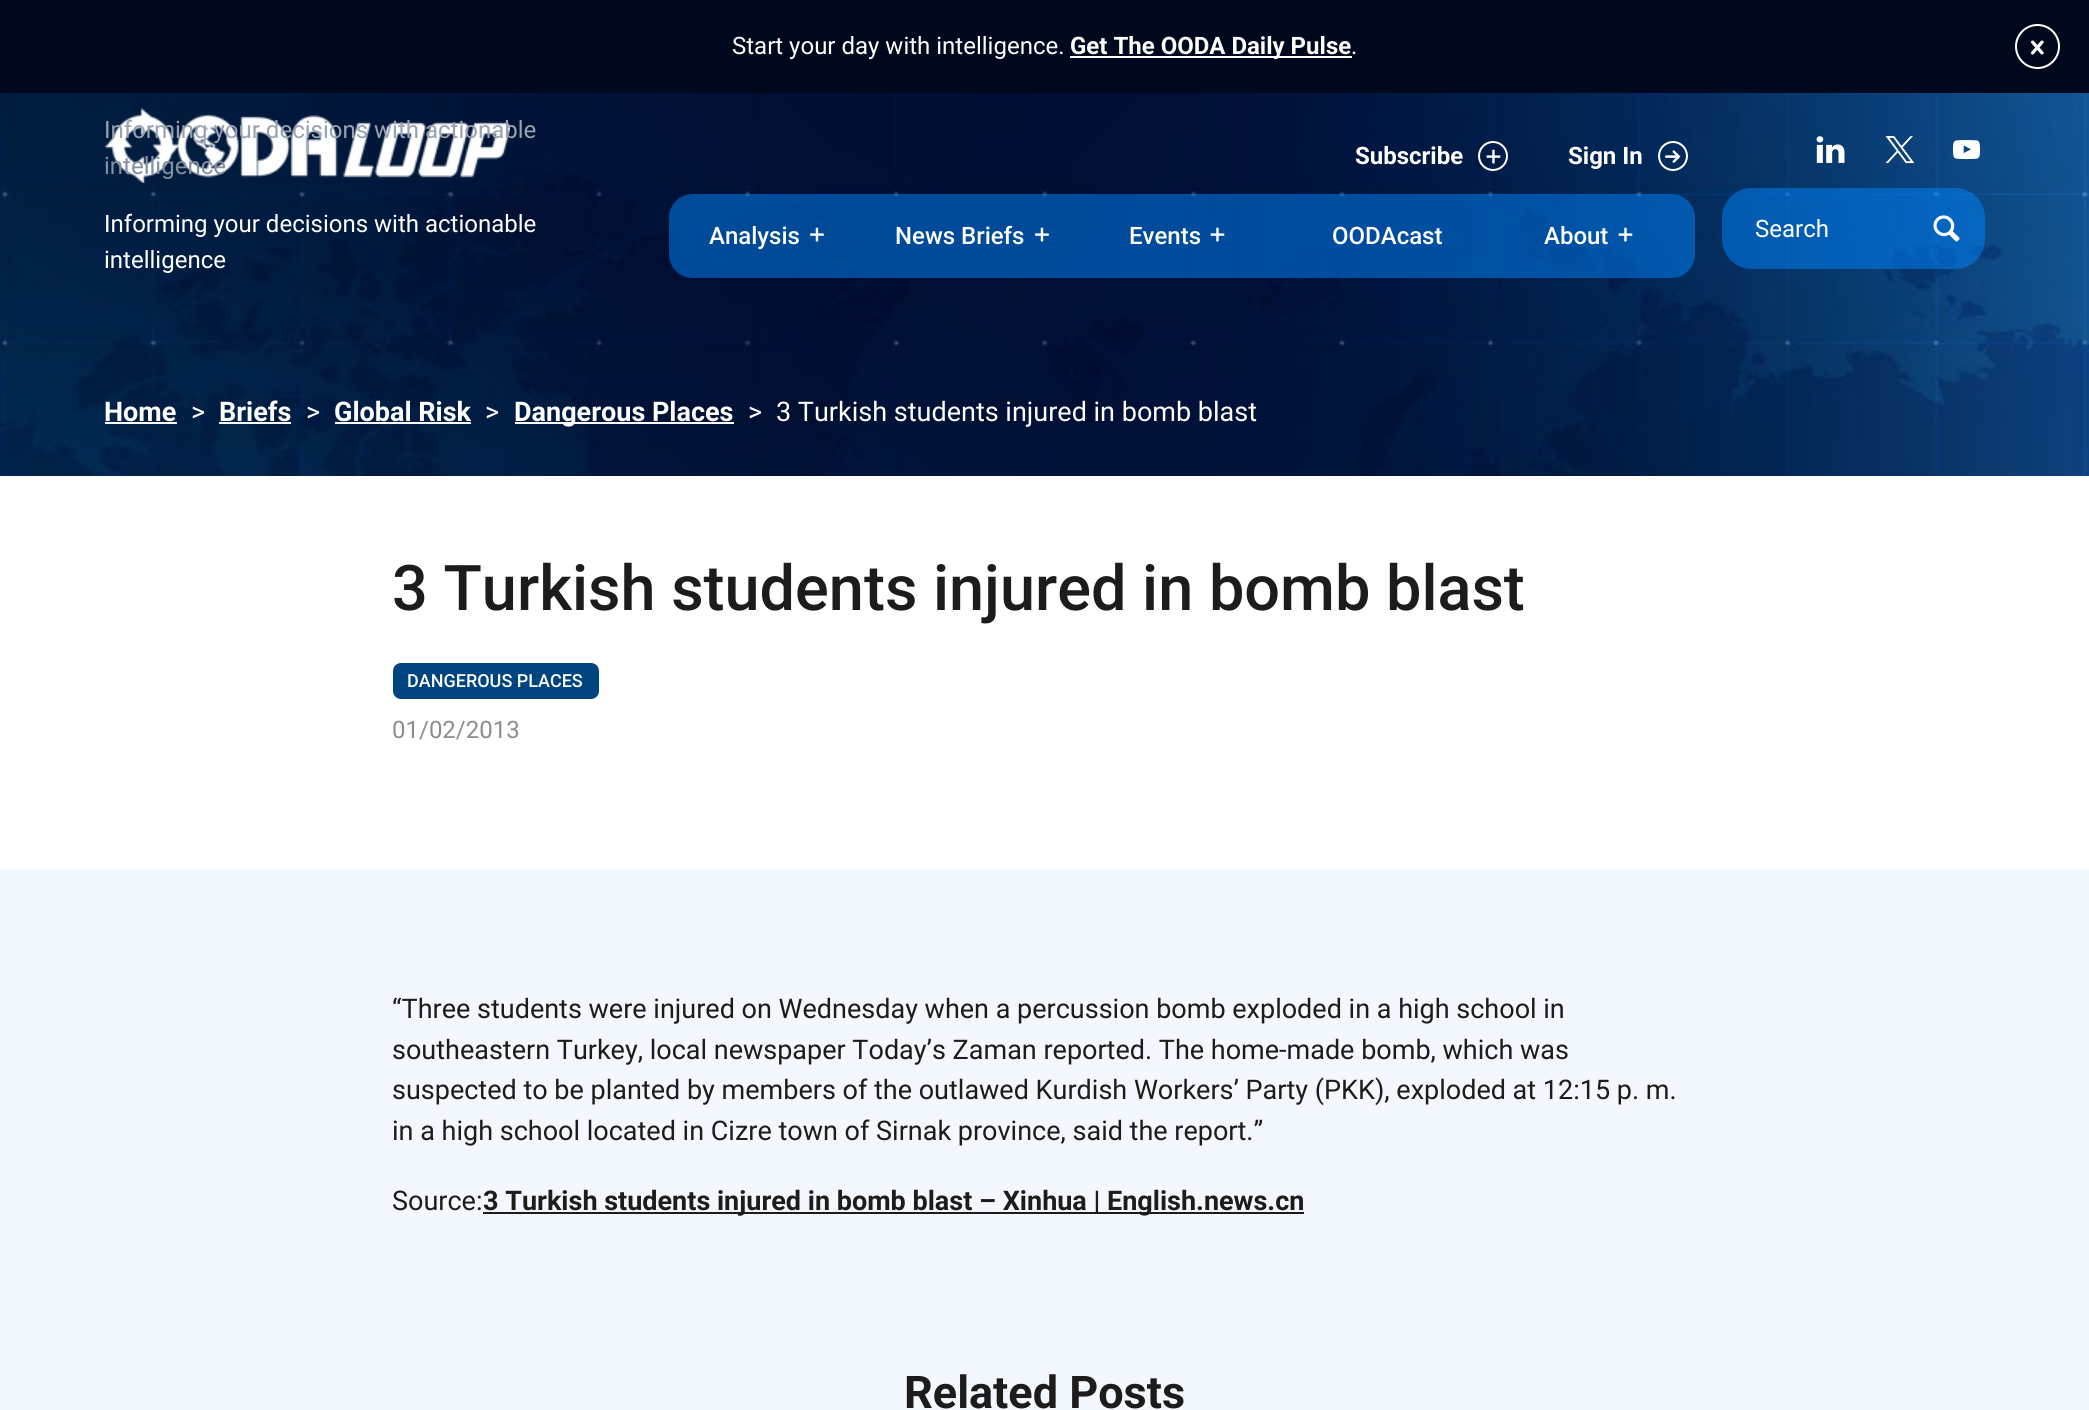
#include <cairo.h>
#include <math.h>
#include <stddef.h>


static void set_color(cairo_t *cr, unsigned color) {
    cairo_set_source_rgb(cr, (color >> 16) / 255.0, (color >> 8 & 255) / 255.0, (color & 255) / 255.0);
}

static void draw_text(cairo_t *cr, double x, double y, const char *s, const char *family, double size, int italic, int bold, unsigned color) {
    cairo_select_font_face(cr, family, italic ? CAIRO_FONT_SLANT_ITALIC : CAIRO_FONT_SLANT_NORMAL,
        bold ? CAIRO_FONT_WEIGHT_BOLD : CAIRO_FONT_WEIGHT_NORMAL);
    cairo_set_font_size(cr, size);
    set_color(cr, color);
    cairo_move_to(cr, x, y);
    cairo_show_text(cr, s);
}

static void fill_rect(cairo_t *cr, double x, double y, double w, double h, unsigned color) {
    set_color(cr, color);
    cairo_rectangle(cr, x, y, w, h);
    cairo_fill(cr);
}

static void rounded_rect(cairo_t *cr, double x, double y, double w, double h, double r) {
    cairo_new_sub_path(cr);
    cairo_arc(cr, x + w - r, y + h - r, r, 0, M_PI / 2);
    cairo_arc(cr, x + r, y + h - r, r, M_PI / 2, M_PI);
    cairo_arc(cr, x + r, y + r, r, M_PI, 1.5 * M_PI);
    cairo_arc(cr, x + w - r, y + r, r, 1.5 * M_PI, 2 * M_PI);
    cairo_close_path(cr);
}

static void draw_image(cairo_t *cr, const char *path, double x, double y, double w, double h) {
    cairo_surface_t *image = cairo_image_surface_create_from_png(path);
    cairo_save(cr);
    cairo_set_source_surface(cr, image, x, y);
    cairo_rectangle(cr, x, y, w, h);
    cairo_fill(cr);
    cairo_restore(cr);
    cairo_surface_destroy(image);
}

int main(void) {
    cairo_surface_t *surface = cairo_image_surface_create(CAIRO_FORMAT_RGB24, 2089, 1410);
    cairo_t *cr = cairo_create(surface);
    cairo_font_options_t *options = cairo_font_options_create();
    cairo_font_options_set_hint_metrics(options, CAIRO_HINT_METRICS_OFF);
    cairo_font_options_set_hint_style(options, CAIRO_HINT_STYLE_NONE);
    cairo_set_font_options(cr, options);
    cairo_set_miter_limit(cr, 4);
    set_color(cr, 0xFFFFFF);
    cairo_paint(cr);
    draw_image(cr, "assets/img1.png", 0, 93, 2089, 383);
    fill_rect(cr, 0, 0, 2089, 93, 0x00081D);
    draw_text(cr, 732, 54, "Start your day with intelligence.", "Roboto", 24, 0, 0, 0xFFFFFF);
    fill_rect(cr, 1070, 56, 282, 2, 0xFFFFFF);
    draw_text(cr, 1070, 54, "Get The OODA Daily Pulse", "Roboto", 24, 0, 1, 0xFFFFFF);
    draw_text(cr, 1351, 54, ".", "Roboto", 24, 0, 0, 0xFFFFFF);
    cairo_new_path(cr);
    cairo_arc(cr, 2037.5, 46.5, 21.5, 0, 2 * M_PI);
    cairo_stroke(cr);
    draw_image(cr, "assets/img2.png", 2031, 40, 13, 15);
    draw_image(cr, "assets/img3.png", 105, 108, 405, 75);
    draw_text(cr, 104, 232, "Informing your decisions with actionable", "Roboto", 24, 0, 0, 0xFFFFFF);
    draw_text(cr, 104, 268, "intelligence", "Roboto", 24, 0, 0, 0xFFFFFF);
    draw_text(cr, 1355, 164, "Subscribe", "Roboto", 24, 0, 1, 0xFFFFFF);
    cairo_new_path(cr);
    cairo_arc(cr, 1493, 156, 14, 0, 2 * M_PI);
    cairo_stroke(cr);
    draw_image(cr, "assets/img4.png", 1486, 149, 15, 15);
    draw_text(cr, 1568, 164, "Sign In", "Roboto", 24, 0, 1, 0xFFFFFF);
    cairo_new_path(cr);
    cairo_arc(cr, 1673, 156, 14, 0, 2 * M_PI);
    cairo_stroke(cr);
    draw_image(cr, "assets/img5.png", 1665, 150, 16, 13);
    cairo_set_source_rgba(cr, 0, 0.525, 1, 0.5);
    cairo_new_path(cr);
    cairo_move_to(cr, 693, 194);
    cairo_line_to(cr, 875, 194);
    cairo_line_to(cr, 875, 278);
    cairo_line_to(cr, 693, 278);
    cairo_curve_to(cr, 679.5, 278, 669, 267.5, 669, 254);
    cairo_line_to(cr, 669, 218);
    cairo_curve_to(cr, 669, 204.5, 679.5, 194, 693, 194);
    cairo_close_path(cr);
    cairo_fill(cr);
    draw_text(cr, 709, 244, "Analysis", "Roboto Medium", 24, 0, 0, 0xFFFFFF);
    draw_image(cr, "assets/img6.png", 810, 227, 14, 15);
    cairo_set_source_rgba(cr, 0, 0.525, 1, 0.5);
    cairo_rectangle(cr, 875, 194, 205, 84);
    cairo_fill(cr);
    draw_text(cr, 895, 244, "News Briefs", "Roboto Medium", 24, 0, 0, 0xFFFFFF);
    draw_image(cr, "assets/img7.png", 1035, 227, 14, 15);
    cairo_set_source_rgba(cr, 0, 0.525, 1, 0.5);
    cairo_rectangle(cr, 1080, 194, 204, 84);
    cairo_fill(cr);
    draw_text(cr, 1129, 244, "Events", "Roboto Medium", 24, 0, 0, 0xFFFFFF);
    draw_image(cr, "assets/img8.png", 1210, 227, 15, 15);
    cairo_set_source_rgba(cr, 0, 0.525, 1, 0.5);
    cairo_rectangle(cr, 1284, 194, 206, 84);
    cairo_fill(cr);
    draw_text(cr, 1332, 244, "OODAcast", "Roboto Medium", 24, 0, 0, 0xFFFFFF);
    cairo_set_source_rgba(cr, 0, 0.525, 1, 0.5);
    cairo_new_path(cr);
    cairo_move_to(cr, 1490, 194);
    cairo_line_to(cr, 1671, 194);
    cairo_curve_to(cr, 1684.5, 194, 1695, 204.5, 1695, 218);
    cairo_line_to(cr, 1695, 254);
    cairo_curve_to(cr, 1695, 267.5, 1684.5, 278, 1671, 278);
    cairo_line_to(cr, 1490, 278);
    cairo_close_path(cr);
    cairo_fill(cr);
    draw_text(cr, 1544, 244, "About", "Roboto Medium", 24, 0, 0, 0xFFFFFF);
    draw_image(cr, "assets/img9.png", 1618, 227, 15, 15);
    draw_image(cr, "assets/img10.png", 1816, 136, 29, 27);
    draw_image(cr, "assets/img11.png", 1885, 136, 30, 28);
    draw_image(cr, "assets/img12.png", 1953, 140, 27, 20);
    cairo_set_source_rgba(cr, 0, 0.525, 1, 0.5);
    rounded_rect(cr, 1722, 188, 263, 81, 30);
    cairo_fill(cr);
    draw_text(cr, 1755, 237, "Search", "Roboto", 24, 0, 0, 0xFFFFFF);
    draw_image(cr, "assets/img13.png", 1933, 215, 27, 27);
    draw_text(cr, 104, 138, "Informing your decisions with actionable", "Roboto", 24, 0, 0, 0x99A2B0);
    draw_text(cr, 104, 174, "intelligence", "Roboto", 24, 0, 0, 0x818FA0);
    draw_text(cr, 104, 421, "Home", "Roboto", 27, 0, 1, 0xFFFFFF);
    fill_rect(cr, 105, 422, 72, 2, 0xFFFFFF);
    draw_text(cr, 191, 421, ">", "Roboto", 27, 0, 0, 0xFFFFFF);
    draw_text(cr, 219, 421, "Briefs", "Roboto", 27, 0, 1, 0xFFFFFF);
    fill_rect(cr, 219, 422, 72, 2, 0xFFFFFF);
    draw_text(cr, 306, 421, ">", "Roboto", 27, 0, 0, 0xFFFFFF);
    draw_text(cr, 334, 421, "Global Risk", "Roboto", 27, 0, 1, 0xFFFFFF);
    fill_rect(cr, 335, 422, 136, 2, 0xFFFFFF);
    draw_text(cr, 485, 421, ">", "Roboto", 27, 0, 0, 0xFFFFFF);
    fill_rect(cr, 515, 422, 219, 2, 0xFFFFFF);
    draw_text(cr, 514, 421, "Dangerous Places", "Roboto", 27, 0, 1, 0xFFFFFF);
    draw_text(cr, 748, 421, ">", "Roboto", 27, 0, 0, 0xFFFFFF);
    draw_text(cr, 776, 421, "3 Turkish students injured in bomb blast", "Roboto", 27, 0, 0, 0xFFFFFF);
    draw_text(cr, 392, 610, "3 Turkish students injured in bomb blast", "Roboto Medium", 63, 0, 0, 0x1C1C1C);
    set_color(cr, 0x004480);
    rounded_rect(cr, 393, 663, 206, 36, 8);
    cairo_fill(cr);
    draw_text(cr, 407, 687, "DANGEROUS PLACES", "Roboto Medium", 18, 0, 0, 0xFFFFFF);
    draw_text(cr, 392, 738, "01/02/2013", "Roboto", 24, 0, 0, 0x8D8D8D);
    fill_rect(cr, 0, 869, 2089, 541, 0xF3F8FF);
    draw_text(cr, 392, 1018, "“Three students were injured on Wednesday when a percussion bomb exploded in a high school in", "Roboto", 27, 0, 0, 0x1C1C1C);
    draw_text(cr, 392, 1059, "southeastern Turkey, local newspaper Today’s Zaman reported. The home-made bomb, which was", "Roboto", 27, 0, 0, 0x1C1C1C);
    draw_text(cr, 392, 1099, "suspected to be planted by members of the outlawed Kurdish Workers’ Party (PKK), exploded at 12:15 p. m.", "Roboto", 27, 0, 0, 0x1C1C1C);
    draw_text(cr, 392, 1140, "in a high school located in Cizre town of Sirnak province, said the report.”", "Roboto", 27, 0, 0, 0x1C1C1C);
    draw_text(cr, 392, 1210, "Source:", "Roboto", 27, 0, 0, 0x1C1C1C);
    fill_rect(cr, 483, 1212, 821, 2, 0x1C1C1C);
    draw_text(cr, 483, 1210, "3 Turkish students injured in bomb blast – Xinhua | English.news.cn", "Roboto", 27, 0, 1, 0x1C1C1C);
    draw_text(cr, 904, 1408, "Related Posts", "Roboto", 45, 0, 1, 0x1C1C1C);
    cairo_surface_write_to_png(surface, "output.png");
    cairo_font_options_destroy(options);
    cairo_destroy(cr);
    cairo_surface_destroy(surface);
    return 0;
}
